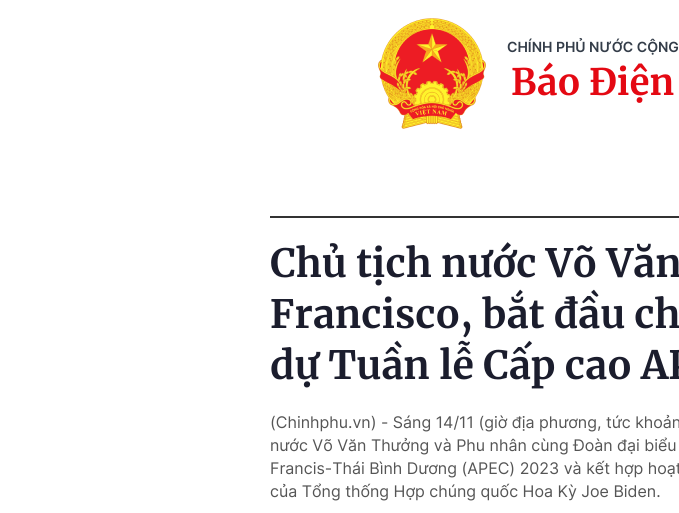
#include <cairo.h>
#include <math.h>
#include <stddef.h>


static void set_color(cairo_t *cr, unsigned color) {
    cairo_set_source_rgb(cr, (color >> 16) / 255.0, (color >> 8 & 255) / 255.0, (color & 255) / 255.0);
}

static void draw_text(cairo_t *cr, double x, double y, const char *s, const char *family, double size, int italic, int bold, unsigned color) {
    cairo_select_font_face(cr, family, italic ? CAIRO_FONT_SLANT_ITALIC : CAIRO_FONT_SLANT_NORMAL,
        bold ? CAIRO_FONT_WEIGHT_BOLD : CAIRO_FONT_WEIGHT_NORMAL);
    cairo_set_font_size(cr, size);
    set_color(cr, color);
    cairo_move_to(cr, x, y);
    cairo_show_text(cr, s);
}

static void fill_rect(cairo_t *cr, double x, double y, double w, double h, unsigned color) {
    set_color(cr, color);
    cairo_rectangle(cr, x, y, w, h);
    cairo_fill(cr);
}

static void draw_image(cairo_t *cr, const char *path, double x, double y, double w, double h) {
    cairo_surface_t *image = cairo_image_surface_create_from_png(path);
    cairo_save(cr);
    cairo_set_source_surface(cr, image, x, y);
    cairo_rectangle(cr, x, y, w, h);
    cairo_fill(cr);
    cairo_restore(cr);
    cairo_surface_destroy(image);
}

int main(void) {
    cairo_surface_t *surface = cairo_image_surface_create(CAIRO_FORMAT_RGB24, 679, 513);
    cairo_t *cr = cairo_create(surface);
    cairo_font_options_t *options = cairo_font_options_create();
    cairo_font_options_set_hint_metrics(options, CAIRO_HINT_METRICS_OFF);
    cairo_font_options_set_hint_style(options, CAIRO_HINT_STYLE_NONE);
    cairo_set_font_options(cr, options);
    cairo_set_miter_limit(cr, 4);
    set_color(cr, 0xFFFFFF);
    cairo_paint(cr);
    fill_rect(cr, 270, 216, 409, 2, 0x333333);
    draw_image(cr, "assets/img1.png", 378, 18, 108, 111);
    draw_text(cr, 507, 52, "CHÍNH PHỦ NƯỚC CỘNG", "Inter SemiBold", 14, 0, 0, 0x343D49);
    draw_text(cr, 511, 95, "Báo Điện", "Merriweather", 36.5, 0, 1, 0xE40913);
    draw_text(cr, 270, 277, "Chủ tịch nước Võ Văn", "Merriweather", 39, 0, 1, 0x1B1D2D);
    draw_text(cr, 270, 328, "Francisco, bắt đầu ch", "Merriweather", 39, 0, 1, 0x1B1D2D);
    draw_text(cr, 270, 379, "dự Tuần lễ Cấp cao AP", "Merriweather", 39, 0, 1, 0x1B1D2D);
    draw_text(cr, 270, 428, "(Chinhphu.vn) - Sáng 14/11 (giờ địa phương, tức khoản", "Inter", 16, 0, 0, 0x555555);
    draw_text(cr, 270, 451, "nước Võ Văn Thưởng và Phu nhân cùng Đoàn đại biểu", "Inter", 16, 0, 0, 0x555555);
    draw_text(cr, 270, 474, "Francis-Thái Bình Dương (APEC) 2023 và kết hợp hoạt", "Inter", 16, 0, 0, 0x555555);
    draw_text(cr, 270, 497, "của Tổng thống Hợp chúng quốc Hoa Kỳ Joe Biden.", "Inter", 16, 0, 0, 0x555555);
    cairo_surface_write_to_png(surface, "output.png");
    cairo_font_options_destroy(options);
    cairo_destroy(cr);
    cairo_surface_destroy(surface);
    return 0;
}
